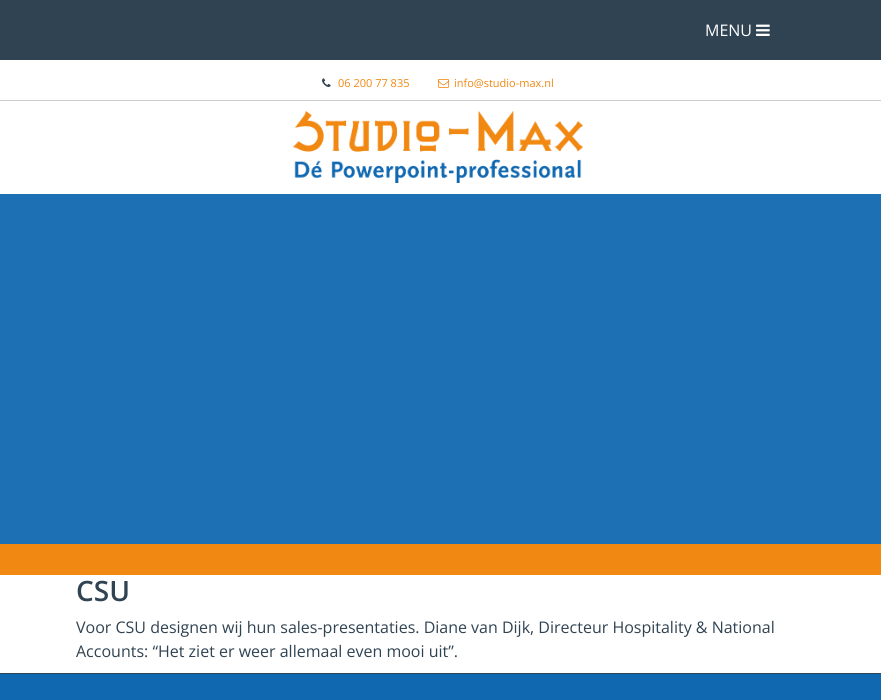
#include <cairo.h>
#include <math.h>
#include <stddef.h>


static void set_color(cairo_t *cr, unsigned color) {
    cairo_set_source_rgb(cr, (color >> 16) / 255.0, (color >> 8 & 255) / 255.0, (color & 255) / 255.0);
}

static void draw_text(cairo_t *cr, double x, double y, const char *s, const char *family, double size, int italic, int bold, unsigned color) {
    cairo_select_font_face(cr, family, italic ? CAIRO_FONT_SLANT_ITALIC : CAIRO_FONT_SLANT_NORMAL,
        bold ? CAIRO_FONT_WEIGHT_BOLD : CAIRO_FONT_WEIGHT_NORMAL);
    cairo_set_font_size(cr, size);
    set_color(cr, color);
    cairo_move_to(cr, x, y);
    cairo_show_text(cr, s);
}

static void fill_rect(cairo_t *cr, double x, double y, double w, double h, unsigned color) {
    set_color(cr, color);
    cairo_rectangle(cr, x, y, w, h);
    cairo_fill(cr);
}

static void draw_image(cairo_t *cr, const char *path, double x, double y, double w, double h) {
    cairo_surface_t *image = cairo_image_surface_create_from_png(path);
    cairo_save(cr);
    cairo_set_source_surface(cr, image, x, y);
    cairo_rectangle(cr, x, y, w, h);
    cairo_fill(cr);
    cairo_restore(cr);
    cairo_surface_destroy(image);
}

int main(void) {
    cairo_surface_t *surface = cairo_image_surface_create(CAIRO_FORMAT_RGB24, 881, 700);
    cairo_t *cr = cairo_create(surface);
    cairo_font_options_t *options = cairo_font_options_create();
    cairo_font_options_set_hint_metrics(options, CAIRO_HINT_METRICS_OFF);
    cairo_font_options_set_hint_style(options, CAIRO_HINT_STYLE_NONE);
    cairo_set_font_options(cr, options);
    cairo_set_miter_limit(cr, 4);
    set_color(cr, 0xFFFFFF);
    cairo_paint(cr);
    fill_rect(cr, 0, 0, 881, 60, 0x304352);
    draw_text(cr, 705, 36, "MENU", "Open Sans", 16, 0, 0, 0xFFFFFF);
    draw_image(cr, "assets/img1.png", 756, 24, 14, 12);
    fill_rect(cr, 0, 100, 881, 1, 0xCCCCCC);
    draw_image(cr, "assets/img2.png", 322, 78, 9, 9);
    draw_text(cr, 338, 87, "06 200 77 835", "Open Sans", 11, 0, 0, 0xF18812);
    draw_image(cr, "assets/img3.png", 438, 79, 11, 9);
    draw_text(cr, 454, 87, "info@studio-max.nl", "Open Sans", 11, 0, 0, 0xF18812);
    draw_image(cr, "assets/img4.png", 293, 111, 290, 72);
    fill_rect(cr, 0, 194, 881, 350, 0x1E70B5);
    fill_rect(cr, 0, 544, 881, 31, 0xF18812);
    draw_text(cr, 76, 601, "CSU", "Open Sans SemiBold", 28, 0, 0, 0x304352);
    draw_text(cr, 76, 633, "Voor CSU designen wij hun sales-presentaties. Diane van Dijk, Directeur Hospitality & National", "Open Sans", 16, 0, 0, 0x304352);
    draw_text(cr, 76, 657, "Accounts: “Het ziet er weer allemaal even mooi uit”.", "Open Sans", 16, 0, 0, 0x304352);
    fill_rect(cr, 0, 674, 881, 26, 0x1068B1);
    fill_rect(cr, 0, 673, 881, 1, 0x304352);
    cairo_surface_write_to_png(surface, "output.png");
    cairo_font_options_destroy(options);
    cairo_destroy(cr);
    cairo_surface_destroy(surface);
    return 0;
}
